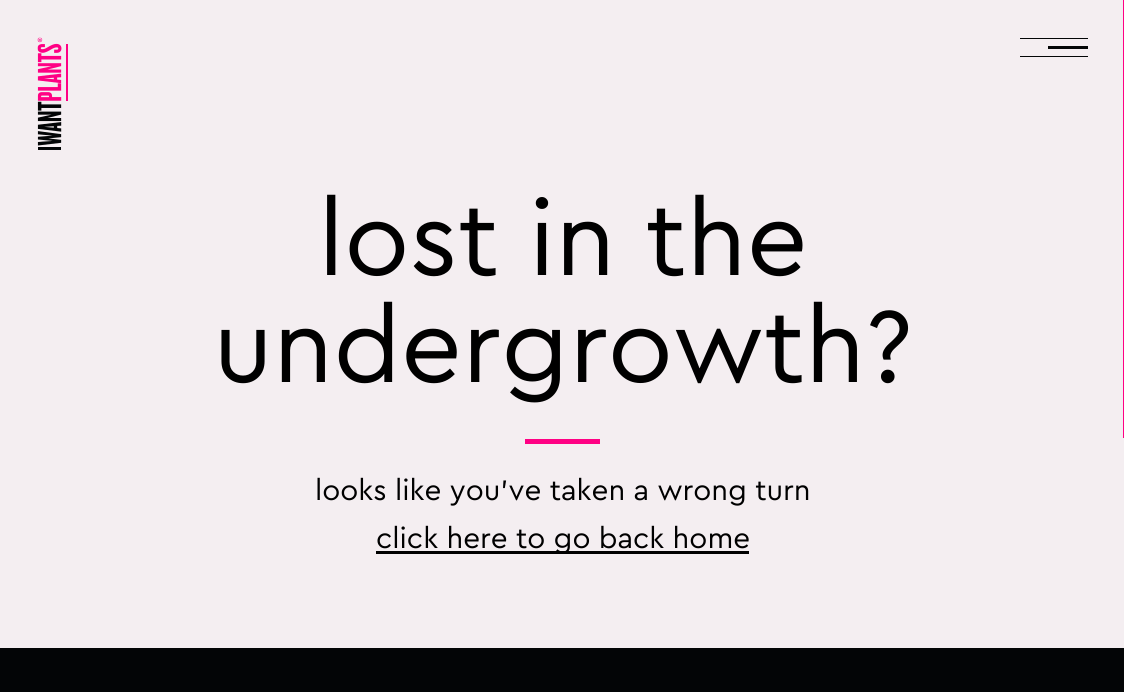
#include <cairo.h>
#include <math.h>
#include <stddef.h>


static void set_color(cairo_t *cr, unsigned color) {
    cairo_set_source_rgb(cr, (color >> 16) / 255.0, (color >> 8 & 255) / 255.0, (color & 255) / 255.0);
}

static void draw_text(cairo_t *cr, double x, double y, const char *s, const char *family, double size, int italic, int bold, unsigned color) {
    cairo_select_font_face(cr, family, italic ? CAIRO_FONT_SLANT_ITALIC : CAIRO_FONT_SLANT_NORMAL,
        bold ? CAIRO_FONT_WEIGHT_BOLD : CAIRO_FONT_WEIGHT_NORMAL);
    cairo_set_font_size(cr, size);
    set_color(cr, color);
    cairo_move_to(cr, x, y);
    cairo_show_text(cr, s);
}

static void fill_rect(cairo_t *cr, double x, double y, double w, double h, unsigned color) {
    set_color(cr, color);
    cairo_rectangle(cr, x, y, w, h);
    cairo_fill(cr);
}

static void draw_image(cairo_t *cr, const char *path, double x, double y, double w, double h) {
    cairo_surface_t *image = cairo_image_surface_create_from_png(path);
    cairo_save(cr);
    cairo_set_source_surface(cr, image, x, y);
    cairo_rectangle(cr, x, y, w, h);
    cairo_fill(cr);
    cairo_restore(cr);
    cairo_surface_destroy(image);
}

int main(void) {
    cairo_surface_t *surface = cairo_image_surface_create(CAIRO_FORMAT_RGB24, 1124, 692);
    cairo_t *cr = cairo_create(surface);
    cairo_font_options_t *options = cairo_font_options_create();
    cairo_font_options_set_hint_metrics(options, CAIRO_HINT_METRICS_OFF);
    cairo_font_options_set_hint_style(options, CAIRO_HINT_STYLE_NONE);
    cairo_set_font_options(cr, options);
    cairo_set_miter_limit(cr, 4);
    set_color(cr, 0xF4EEF1);
    cairo_paint(cr);
    draw_image(cr, "assets/img1.png", 37, 37, 31, 113);
    fill_rect(cr, 1020, 38, 68, 1, 0x030506);
    fill_rect(cr, 1048, 46, 40, 3, 0x030506);
    fill_rect(cr, 1020, 56, 68, 1, 0x030506);
    fill_rect(cr, 1123, 0, 1, 438, 0xFF0084);
    draw_text(cr, 318, 275, "lost in the", "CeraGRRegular", 107, 0, 0, 0x000000);
    draw_text(cr, 213, 382, "undergrowth?", "CeraGRRegular", 107, 0, 0, 0x000000);
    fill_rect(cr, 525, 439, 75, 5, 0xFF0084);
    draw_text(cr, 315, 500, "looks like you’ve taken a wrong turn", "CeraGRRegular", 29.6, 0, 0, 0x000000);
    draw_text(cr, 376, 548, "click here to go back home", "CeraGRRegular", 29.6, 0, 0, 0x000000);
    fill_rect(cr, 376, 551, 373, 3, 0x000000);
    fill_rect(cr, 0, 648, 1124, 44, 0x030506);
    cairo_surface_write_to_png(surface, "output.png");
    cairo_font_options_destroy(options);
    cairo_destroy(cr);
    cairo_surface_destroy(surface);
    return 0;
}
